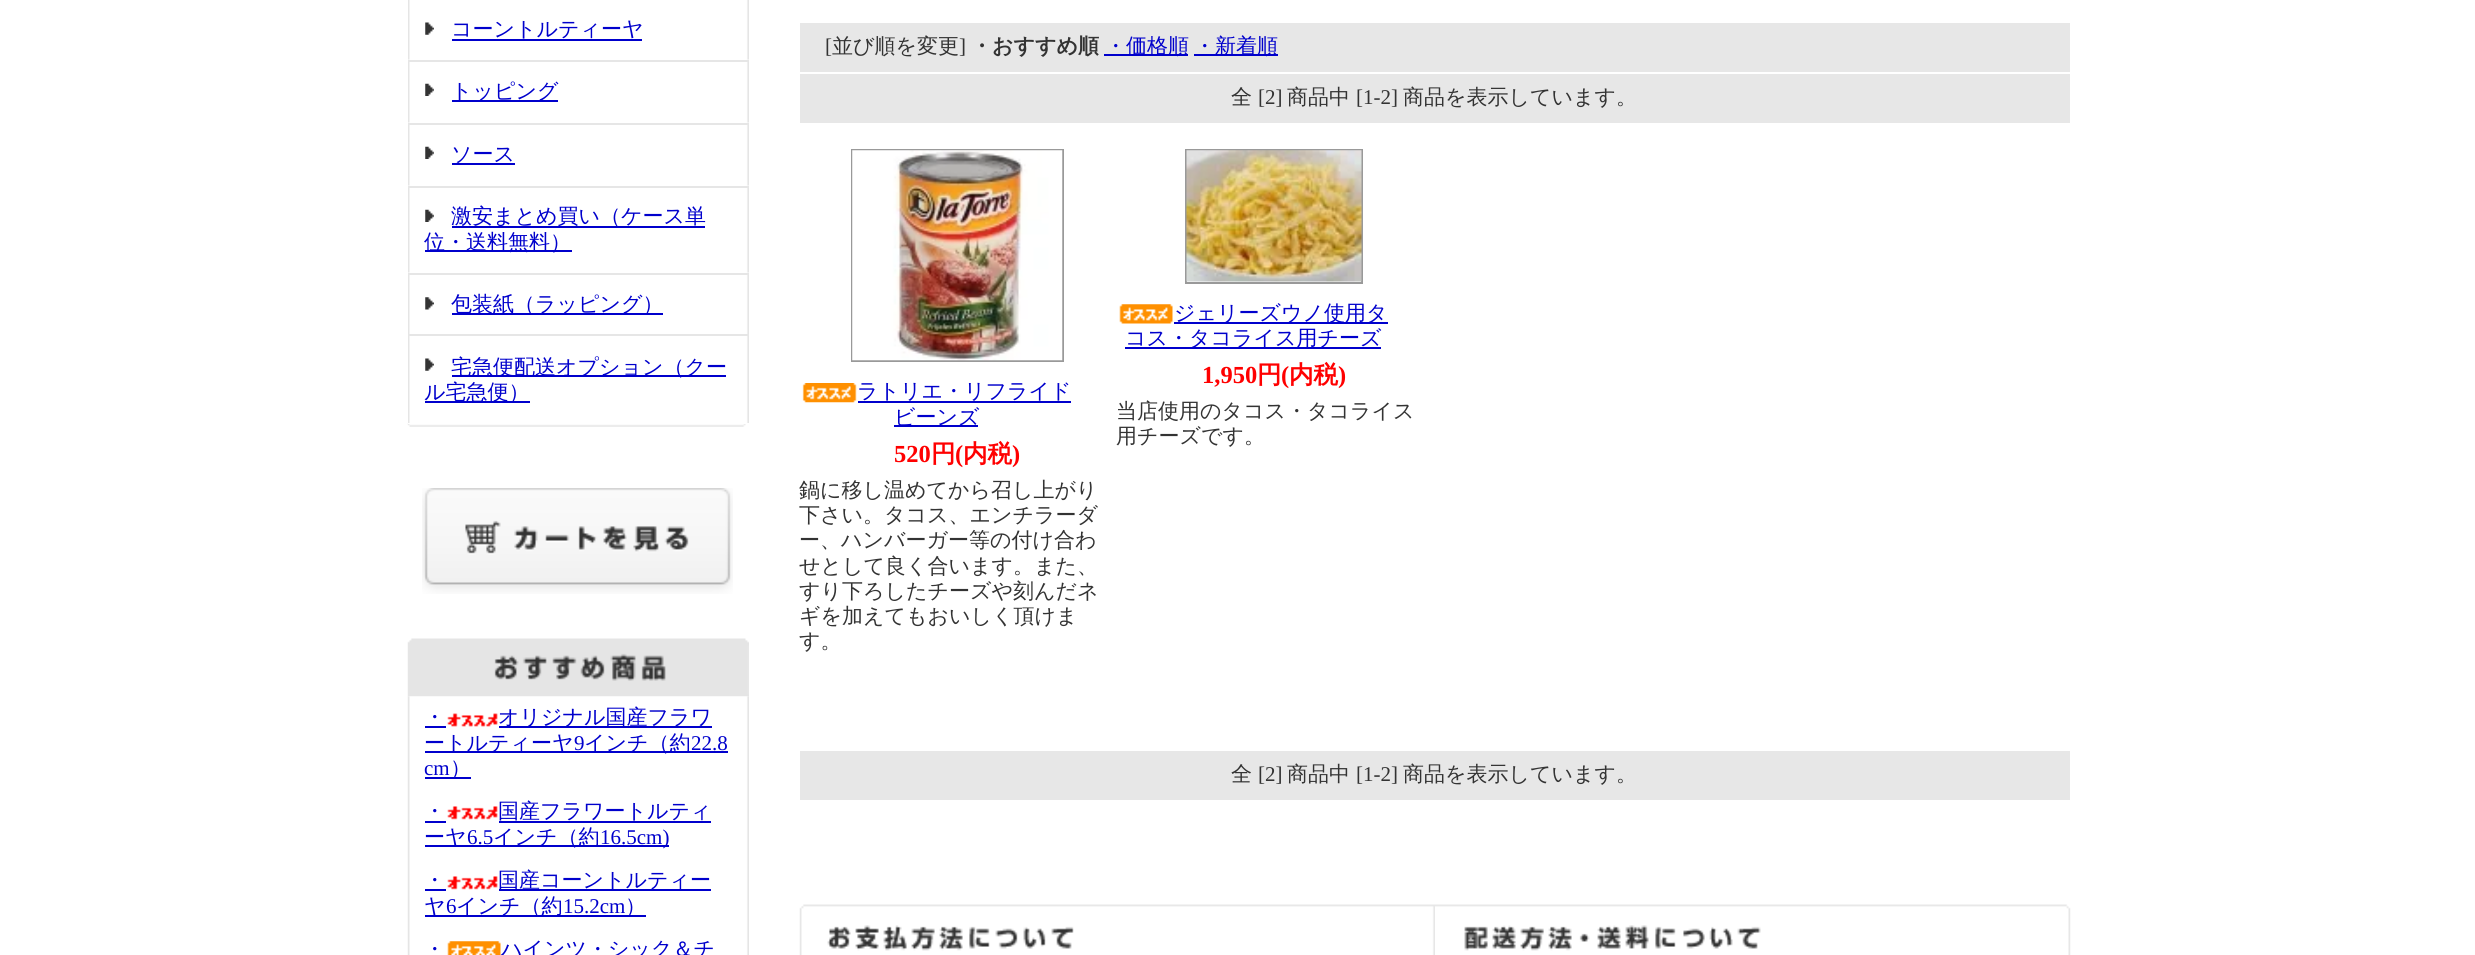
#include <cairo.h>
#include <math.h>
#include <stddef.h>


static void set_color(cairo_t *cr, unsigned color) {
    cairo_set_source_rgb(cr, (color >> 16) / 255.0, (color >> 8 & 255) / 255.0, (color & 255) / 255.0);
}

static void draw_text(cairo_t *cr, double x, double y, const char *s, const char *family, double size, int italic, int bold, unsigned color) {
    cairo_select_font_face(cr, family, italic ? CAIRO_FONT_SLANT_ITALIC : CAIRO_FONT_SLANT_NORMAL,
        bold ? CAIRO_FONT_WEIGHT_BOLD : CAIRO_FONT_WEIGHT_NORMAL);
    cairo_set_font_size(cr, size);
    set_color(cr, color);
    cairo_move_to(cr, x, y);
    cairo_show_text(cr, s);
}

static void fill_rect(cairo_t *cr, double x, double y, double w, double h, unsigned color) {
    set_color(cr, color);
    cairo_rectangle(cr, x, y, w, h);
    cairo_fill(cr);
}

static void draw_image(cairo_t *cr, const char *path, double x, double y, double w, double h) {
    cairo_surface_t *image = cairo_image_surface_create_from_png(path);
    cairo_save(cr);
    cairo_set_source_surface(cr, image, x, y);
    cairo_rectangle(cr, x, y, w, h);
    cairo_fill(cr);
    cairo_restore(cr);
    cairo_surface_destroy(image);
}

int main(void) {
    cairo_surface_t *surface = cairo_image_surface_create(CAIRO_FORMAT_RGB24, 2475, 955);
    cairo_t *cr = cairo_create(surface);
    cairo_font_options_t *options = cairo_font_options_create();
    cairo_font_options_set_hint_metrics(options, CAIRO_HINT_METRICS_OFF);
    cairo_font_options_set_hint_style(options, CAIRO_HINT_STYLE_NONE);
    cairo_set_font_options(cr, options);
    cairo_set_miter_limit(cr, 4);
    set_color(cr, 0xFFFFFF);
    cairo_paint(cr);
    draw_image(cr, "assets/img1.png", 408, 0, 341, 59);
    draw_image(cr, "assets/img2.png", 425, 22, 9, 13);
    draw_text(cr, 451, 36, "コーントルティーヤ", "WenQuanYi Zen Hei Medium", 21, 0, 0, 0x0000CC);
    fill_rect(cr, 452, 39, 190, 2, 0x0000CC);
    draw_image(cr, "assets/img3.png", 408, 59, 341, 63);
    fill_rect(cr, 408, 60, 341, 2, 0xE6E6E6);
    draw_image(cr, "assets/img4.png", 425, 83, 9, 13);
    fill_rect(cr, 452, 100, 106, 2, 0x0000CC);
    draw_text(cr, 451, 98, "トッピング", "WenQuanYi Zen Hei Medium", 21, 0, 0, 0x0000CC);
    draw_image(cr, "assets/img3.png", 408, 122, 341, 63);
    fill_rect(cr, 408, 123, 341, 2, 0xE6E6E6);
    draw_image(cr, "assets/img4.png", 425, 146, 9, 13);
    fill_rect(cr, 452, 163, 63, 2, 0x0000CC);
    draw_text(cr, 451, 161, "ソース", "WenQuanYi Zen Hei Medium", 21, 0, 0, 0x0000CC);
    draw_image(cr, "assets/img5.png", 408, 185, 341, 88);
    fill_rect(cr, 408, 186, 341, 2, 0xE6E6E6);
    draw_image(cr, "assets/img4.png", 425, 209, 9, 13);
    fill_rect(cr, 452, 226, 253, 2, 0x0000CC);
    draw_text(cr, 451, 223, "激安まとめ買い（ケース単", "WenQuanYi Zen Hei Medium", 21, 0, 0, 0x0000CC);
    fill_rect(cr, 425, 250, 147, 2, 0x0000CC);
    draw_text(cr, 424, 249, "位・送料無料）", "WenQuanYi Zen Hei Medium", 21, 0, 0, 0x0000CC);
    draw_image(cr, "assets/img1.png", 408, 275, 341, 59);
    fill_rect(cr, 408, 273, 341, 2, 0xE6E6E6);
    draw_image(cr, "assets/img6.png", 425, 297, 9, 13);
    fill_rect(cr, 452, 313, 211, 2, 0x0000CC);
    draw_text(cr, 451, 311, "包装紙（ラッピング）", "WenQuanYi Zen Hei Medium", 21, 0, 0, 0x0000CC);
    draw_image(cr, "assets/img8.png", 407, 423, 339, 4);
    fill_rect(cr, 408, 423, 338, 1, 0xFFFFFF);
    draw_image(cr, "assets/img7.png", 408, 336, 341, 87);
    fill_rect(cr, 408, 334, 341, 2, 0xE6E6E6);
    draw_image(cr, "assets/img2.png", 425, 358, 9, 13);
    fill_rect(cr, 452, 375, 274, 2, 0x0000CC);
    draw_text(cr, 451, 374, "宅急便配送オプション（クー", "WenQuanYi Zen Hei Medium", 21, 0, 0, 0x0000CC);
    fill_rect(cr, 425, 401, 105, 2, 0x0000CC);
    draw_text(cr, 424, 399, "ル宅急便）", "WenQuanYi Zen Hei Medium", 21, 0, 0, 0x0000CC);
    draw_image(cr, "assets/img9.png", 422, 488, 311, 106);
    draw_image(cr, "assets/img11.png", 407, 696, 342, 259);
    draw_image(cr, "assets/img10.png", 407, 638, 342, 59);
    draw_text(cr, 424, 724, "・", "WenQuanYi Zen Hei Medium", 21, 0, 0, 0x0000CC);
    fill_rect(cr, 425, 726, 21, 2, 0x0000CC);
    draw_image(cr, "assets/img12.png", 447, 713, 51, 14);
    fill_rect(cr, 499, 726, 213, 2, 0x0000CC);
    draw_text(cr, 498, 724, "オリジナル国産フラワ", "WenQuanYi Zen Hei Medium", 21, 0, 0, 0x0000CC);
    fill_rect(cr, 425, 751, 303, 2, 0x0000CC);
    draw_text(cr, 424, 750, "ートルティーヤ", "WenQuanYi Zen Hei Medium", 21, 0, 0, 0x0000CC);
    draw_text(cr, 574, 750, "9", "Liberation Serif", 21, 0, 0, 0x0000CC);
    draw_text(cr, 584, 750, "インチ（約", "WenQuanYi Zen Hei Medium", 21, 0, 0, 0x0000CC);
    draw_text(cr, 691, 750, "22.8", "Liberation Serif", 21, 0, 0, 0x0000CC);
    draw_text(cr, 424, 775, "cm", "Liberation Serif", 21, 0, 0, 0x0000CC);
    fill_rect(cr, 425, 777, 46, 2, 0x0000CC);
    draw_text(cr, 450, 775, "）", "WenQuanYi Zen Hei Medium", 21, 0, 0, 0x0000CC);
    draw_text(cr, 424, 818, "・", "WenQuanYi Zen Hei Medium", 21, 0, 0, 0x0000CC);
    fill_rect(cr, 425, 821, 21, 2, 0x0000CC);
    draw_image(cr, "assets/img13.png", 447, 806, 51, 14);
    draw_text(cr, 498, 818, "国産フラワートルティ", "WenQuanYi Zen Hei Medium", 21, 0, 0, 0x0000CC);
    fill_rect(cr, 499, 821, 212, 2, 0x0000CC);
    fill_rect(cr, 425, 845, 244, 2, 0x0000CC);
    draw_text(cr, 424, 844, "ーヤ", "WenQuanYi Zen Hei Medium", 21, 0, 0, 0x0000CC);
    draw_text(cr, 467, 844, "6.5", "Liberation Serif", 21, 0, 0, 0x0000CC);
    draw_text(cr, 493, 844, "インチ（約", "WenQuanYi Zen Hei Medium", 21, 0, 0, 0x0000CC);
    draw_text(cr, 600, 844, "16.5cm)", "Liberation Serif", 21, 0, 0, 0x0000CC);
    draw_text(cr, 424, 887, "・", "WenQuanYi Zen Hei Medium", 21, 0, 0, 0x0000CC);
    fill_rect(cr, 425, 889, 21, 2, 0x0000CC);
    draw_image(cr, "assets/img13.png", 447, 876, 51, 14);
    fill_rect(cr, 499, 889, 212, 2, 0x0000CC);
    draw_text(cr, 498, 887, "国産コーントルティー", "WenQuanYi Zen Hei Medium", 21, 0, 0, 0x0000CC);
    fill_rect(cr, 425, 915, 221, 2, 0x0000CC);
    draw_text(cr, 424, 913, "ヤ", "WenQuanYi Zen Hei Medium", 21, 0, 0, 0x0000CC);
    draw_text(cr, 446, 913, "6", "Liberation Serif", 21, 0, 0, 0x0000CC);
    draw_text(cr, 456, 913, "インチ（約", "WenQuanYi Zen Hei Medium", 21, 0, 0, 0x0000CC);
    draw_text(cr, 563, 913, "15.2cm", "Liberation Serif", 21, 0, 0, 0x0000CC);
    draw_text(cr, 625, 913, "）", "WenQuanYi Zen Hei Medium", 21, 0, 0, 0x0000CC);
    draw_text(cr, 424, 956, "・", "WenQuanYi Zen Hei Medium", 21, 0, 0, 0x0000CC);
    draw_image(cr, "assets/img14.png", 447, 941, 54, 14);
    draw_text(cr, 501, 956, "ハインツ・シック＆チ", "WenQuanYi Zen Hei Medium", 21, 0, 0, 0x0000CC);
    fill_rect(cr, 800, 23, 1270, 49, 0xE7E7E7);
    draw_text(cr, 825, 53, "[", "Liberation Serif", 21, 0, 0, 0x333333);
    draw_text(cr, 832, 53, "並び順を変更", "WenQuanYi Zen Hei Medium", 21, 0, 0, 0x333333);
    draw_text(cr, 959, 53, "]", "Liberation Serif", 21, 0, 0, 0x333333);
    draw_text(cr, 971, 53, "・おすすめ順", "WenQuanYi Zen Hei", 21, 0, 1, 0x333333);
    fill_rect(cr, 1104, 54, 84, 2, 0x0000CC);
    draw_text(cr, 1105, 53, "・価格順", "WenQuanYi Zen Hei Medium", 21, 0, 0, 0x0000CC);
    fill_rect(cr, 1194, 54, 84, 2, 0x0000CC);
    draw_text(cr, 1194, 53, "・新着順", "WenQuanYi Zen Hei Medium", 21, 0, 0, 0x0000CC);
    fill_rect(cr, 800, 74, 1270, 49, 0xE7E7E7);
    draw_text(cr, 1231, 104, "全", "WenQuanYi Zen Hei Medium", 21, 0, 0, 0x333333);
    draw_text(cr, 1258, 104, "[2]", "Liberation Serif", 21, 0, 0, 0x333333);
    draw_text(cr, 1287, 104, "商品中", "WenQuanYi Zen Hei Medium", 21, 0, 0, 0x333333);
    draw_text(cr, 1356, 104, "[1-2]", "Liberation Serif", 21, 0, 0, 0x333333);
    draw_text(cr, 1403, 104, "商品を表示しています。", "WenQuanYi Zen Hei Medium", 21, 0, 0, 0x333333);
    cairo_rectangle(cr, 852, 150, 211, 211);
    set_color(cr, 0x999999);
    cairo_stroke(cr);
    draw_image(cr, "assets/img15.png", 852, 150, 211, 211);
    draw_image(cr, "assets/img16.png", 802, 383, 55, 20);
    draw_text(cr, 857, 398, "ラトリエ・リフライド", "WenQuanYi Zen Hei Medium", 21, 0, 0, 0x0000CC);
    fill_rect(cr, 858, 401, 213, 2, 0x0000CC);
    fill_rect(cr, 894, 425, 84, 2, 0x0000CC);
    draw_text(cr, 894, 424, "ビーンズ", "WenQuanYi Zen Hei Medium", 21, 0, 0, 0x0000CC);
    draw_text(cr, 894, 462, "520", "Liberation Serif", 24.5, 0, 1, 0xFF0000);
    draw_text(cr, 931, 462, "円", "WenQuanYi Zen Hei", 24.5, 0, 1, 0xFF0000);
    draw_text(cr, 955, 462, "(", "Liberation Serif", 24.5, 0, 1, 0xFF0000);
    draw_text(cr, 963, 462, "内税", "WenQuanYi Zen Hei", 24.5, 0, 1, 0xFF0000);
    draw_text(cr, 1012, 462, ")", "Liberation Serif", 24.5, 0, 1, 0xFF0000);
    draw_text(cr, 799, 497, "鍋に移し温めてから召し上がり", "WenQuanYi Zen Hei Medium", 21, 0, 0, 0x333333);
    draw_text(cr, 799, 522, "下さい。タコス、エンチラーダ", "WenQuanYi Zen Hei Medium", 21, 0, 0, 0x333333);
    draw_text(cr, 799, 547, "ー、ハンバーガー等の付け合わ", "WenQuanYi Zen Hei Medium", 21, 0, 0, 0x333333);
    draw_text(cr, 799, 573, "せとして良く合います。また、", "WenQuanYi Zen Hei Medium", 21, 0, 0, 0x333333);
    draw_text(cr, 799, 598, "すり下ろしたチーズや刻んだネ", "WenQuanYi Zen Hei Medium", 21, 0, 0, 0x333333);
    draw_text(cr, 799, 623, "ギを加えてもおいしく頂けま", "WenQuanYi Zen Hei Medium", 21, 0, 0, 0x333333);
    draw_text(cr, 799, 648, "す。", "WenQuanYi Zen Hei Medium", 21, 0, 0, 0x333333);
    cairo_rectangle(cr, 1186, 150, 176, 133);
    set_color(cr, 0x999999);
    cairo_stroke(cr);
    draw_image(cr, "assets/img17.png", 1186, 150, 176, 132);
    draw_image(cr, "assets/img18.png", 1119, 304, 54, 20);
    fill_rect(cr, 1174, 322, 214, 2, 0x0000CC);
    draw_text(cr, 1174, 320, "ジェリーズウノ使用タ", "WenQuanYi Zen Hei Medium", 21, 0, 0, 0x0000CC);
    fill_rect(cr, 1125, 347, 256, 2, 0x0000CC);
    draw_text(cr, 1125, 345, "コス・タコライス用チーズ", "WenQuanYi Zen Hei Medium", 21, 0, 0, 0x0000CC);
    draw_text(cr, 1202, 383, "1,950", "Liberation Serif", 24.5, 0, 1, 0xFF0000);
    draw_text(cr, 1257, 383, "円", "WenQuanYi Zen Hei", 24.5, 0, 1, 0xFF0000);
    draw_text(cr, 1281, 383, "(", "Liberation Serif", 24.5, 0, 1, 0xFF0000);
    draw_text(cr, 1289, 383, "内税", "WenQuanYi Zen Hei", 24.5, 0, 1, 0xFF0000);
    draw_text(cr, 1338, 383, ")", "Liberation Serif", 24.5, 0, 1, 0xFF0000);
    draw_text(cr, 1116, 418, "当店使用のタコス・タコライス", "WenQuanYi Zen Hei Medium", 21, 0, 0, 0x333333);
    draw_text(cr, 1116, 443, "用チーズです。", "WenQuanYi Zen Hei Medium", 21, 0, 0, 0x333333);
    fill_rect(cr, 800, 751, 1270, 49, 0xE7E7E7);
    draw_text(cr, 1231, 781, "全", "WenQuanYi Zen Hei Medium", 21, 0, 0, 0x333333);
    draw_text(cr, 1258, 781, "[2]", "Liberation Serif", 21, 0, 0, 0x333333);
    draw_text(cr, 1287, 781, "商品中", "WenQuanYi Zen Hei Medium", 21, 0, 0, 0x333333);
    draw_text(cr, 1356, 781, "[1-2]", "Liberation Serif", 21, 0, 0, 0x333333);
    draw_text(cr, 1403, 781, "商品を表示しています。", "WenQuanYi Zen Hei Medium", 21, 0, 0, 0x333333);
    draw_image(cr, "assets/img19.png", 799, 904, 636, 51);
    draw_image(cr, "assets/img20.png", 1435, 904, 636, 51);
    cairo_surface_write_to_png(surface, "output.png");
    cairo_font_options_destroy(options);
    cairo_destroy(cr);
    cairo_surface_destroy(surface);
    return 0;
}
